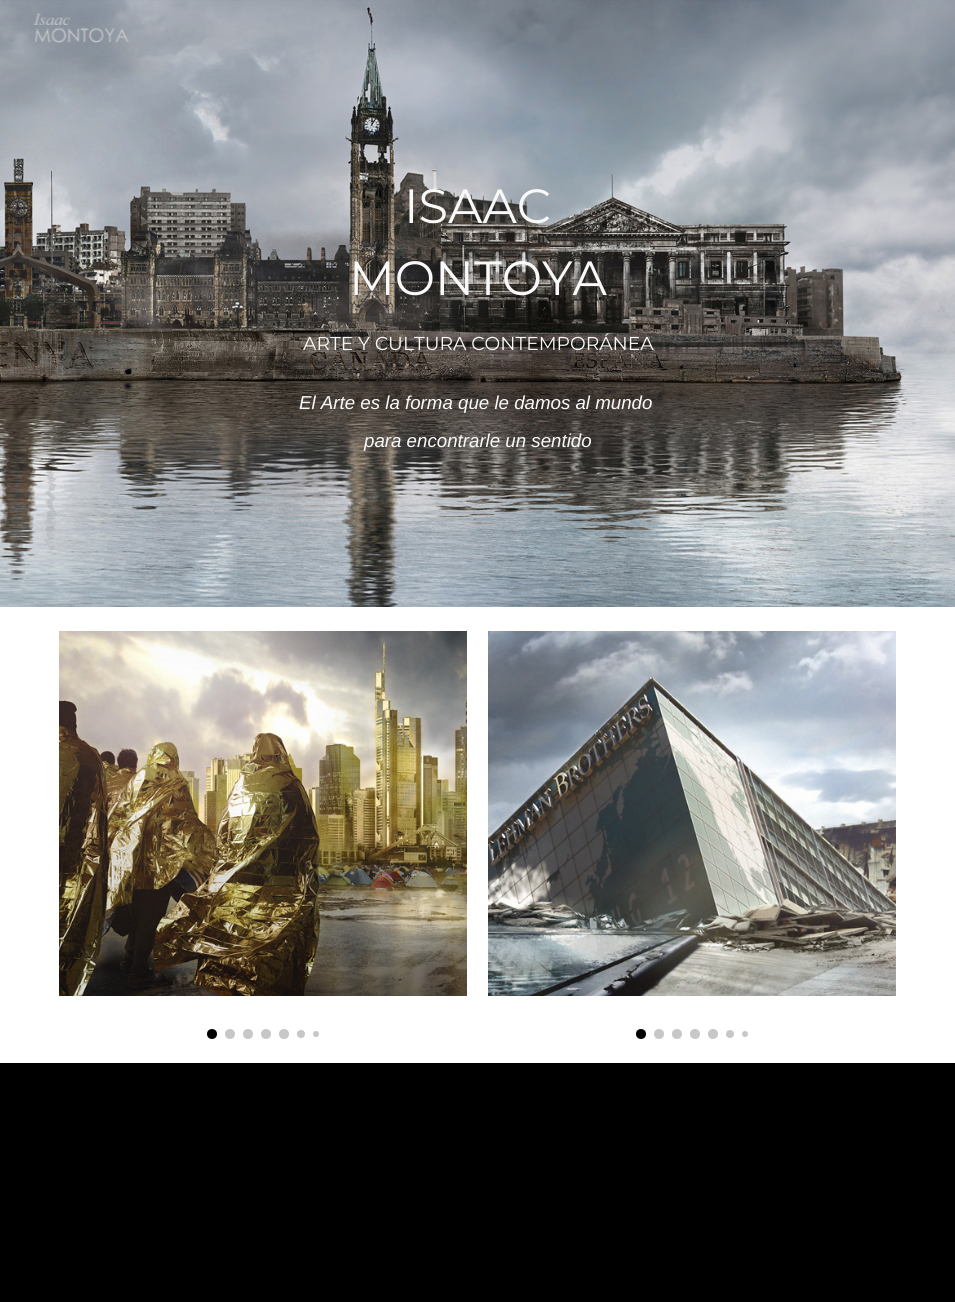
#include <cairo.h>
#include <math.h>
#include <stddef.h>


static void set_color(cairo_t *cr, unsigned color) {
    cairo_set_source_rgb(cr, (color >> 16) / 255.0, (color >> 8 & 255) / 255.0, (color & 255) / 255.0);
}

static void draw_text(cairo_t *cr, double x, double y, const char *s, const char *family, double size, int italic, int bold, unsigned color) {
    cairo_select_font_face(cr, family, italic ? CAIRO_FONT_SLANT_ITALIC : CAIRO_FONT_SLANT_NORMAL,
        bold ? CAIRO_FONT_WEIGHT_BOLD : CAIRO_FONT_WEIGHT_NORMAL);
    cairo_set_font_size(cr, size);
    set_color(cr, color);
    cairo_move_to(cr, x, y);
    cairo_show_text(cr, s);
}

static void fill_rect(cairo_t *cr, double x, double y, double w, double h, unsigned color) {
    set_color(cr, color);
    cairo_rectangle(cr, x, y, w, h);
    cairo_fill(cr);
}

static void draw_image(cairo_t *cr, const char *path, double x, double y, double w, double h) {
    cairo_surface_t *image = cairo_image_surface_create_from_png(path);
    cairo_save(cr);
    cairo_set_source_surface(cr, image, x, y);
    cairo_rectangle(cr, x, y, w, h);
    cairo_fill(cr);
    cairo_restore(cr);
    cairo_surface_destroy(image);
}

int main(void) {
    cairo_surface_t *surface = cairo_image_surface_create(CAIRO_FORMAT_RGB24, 955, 1302);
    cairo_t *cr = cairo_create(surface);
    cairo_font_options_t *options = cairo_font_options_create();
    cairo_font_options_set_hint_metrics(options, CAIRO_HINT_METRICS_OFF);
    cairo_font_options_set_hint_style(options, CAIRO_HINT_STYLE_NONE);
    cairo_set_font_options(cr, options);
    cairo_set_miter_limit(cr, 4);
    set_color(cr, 0x000000);
    cairo_paint(cr);
    draw_image(cr, "assets/img2.png", 0, 0, 955, 607);
    draw_image(cr, "assets/img1.png", 33, 13, 96, 30);
    draw_text(cr, 404, 223, "ISAAC", "Montserrat", 48, 0, 0, 0xF9F9F9);
    draw_text(cr, 349, 295, "MONTOYA", "Montserrat", 48, 0, 0, 0xF9F9F9);
    draw_text(cr, 303, 350, "ARTE Y CULTURA CONTEMPORÁNEA", "Montserrat", 18.7, 0, 0, 0xF9F9F9);
    draw_text(cr, 299, 409, "El Arte es la forma que le damos al mundo", "Liberation Sans", 18.7, 1, 0, 0xF9F9F9);
    draw_text(cr, 364, 447, "para encontrarle un sentido", "Liberation Sans", 18.7, 1, 0, 0xF9F9F9);
    fill_rect(cr, 0, 607, 955, 456, 0xFFFFFF);
    draw_image(cr, "assets/img3.png", 59, 631, 408, 365);
    set_color(cr, 0x000000);
    cairo_arc(cr, 212, 1034, 5, 0, 2 * M_PI);
    cairo_fill(cr);
    set_color(cr, 0xC7C7C7);
    cairo_arc(cr, 230, 1034, 5, 0, 2 * M_PI);
    cairo_fill(cr);
    cairo_arc(cr, 248, 1034, 5, 0, 2 * M_PI);
    cairo_fill(cr);
    cairo_arc(cr, 266, 1034, 5, 0, 2 * M_PI);
    cairo_fill(cr);
    cairo_arc(cr, 284, 1034, 5, 0, 2 * M_PI);
    cairo_fill(cr);
    cairo_arc(cr, 301, 1034, 4, 0, 2 * M_PI);
    cairo_fill(cr);
    cairo_arc(cr, 316, 1034, 3, 0, 2 * M_PI);
    cairo_fill(cr);
    draw_image(cr, "assets/img4.png", 488, 631, 408, 365);
    set_color(cr, 0x000000);
    cairo_arc(cr, 641, 1034, 5, 0, 2 * M_PI);
    cairo_fill(cr);
    set_color(cr, 0xC7C7C7);
    cairo_arc(cr, 659, 1034, 5, 0, 2 * M_PI);
    cairo_fill(cr);
    cairo_arc(cr, 677, 1034, 5, 0, 2 * M_PI);
    cairo_fill(cr);
    cairo_arc(cr, 695, 1034, 5, 0, 2 * M_PI);
    cairo_fill(cr);
    cairo_arc(cr, 713, 1034, 5, 0, 2 * M_PI);
    cairo_fill(cr);
    cairo_arc(cr, 730, 1034, 4, 0, 2 * M_PI);
    cairo_fill(cr);
    cairo_arc(cr, 745, 1034, 3, 0, 2 * M_PI);
    cairo_fill(cr);
    cairo_surface_write_to_png(surface, "output.png");
    cairo_font_options_destroy(options);
    cairo_destroy(cr);
    cairo_surface_destroy(surface);
    return 0;
}
